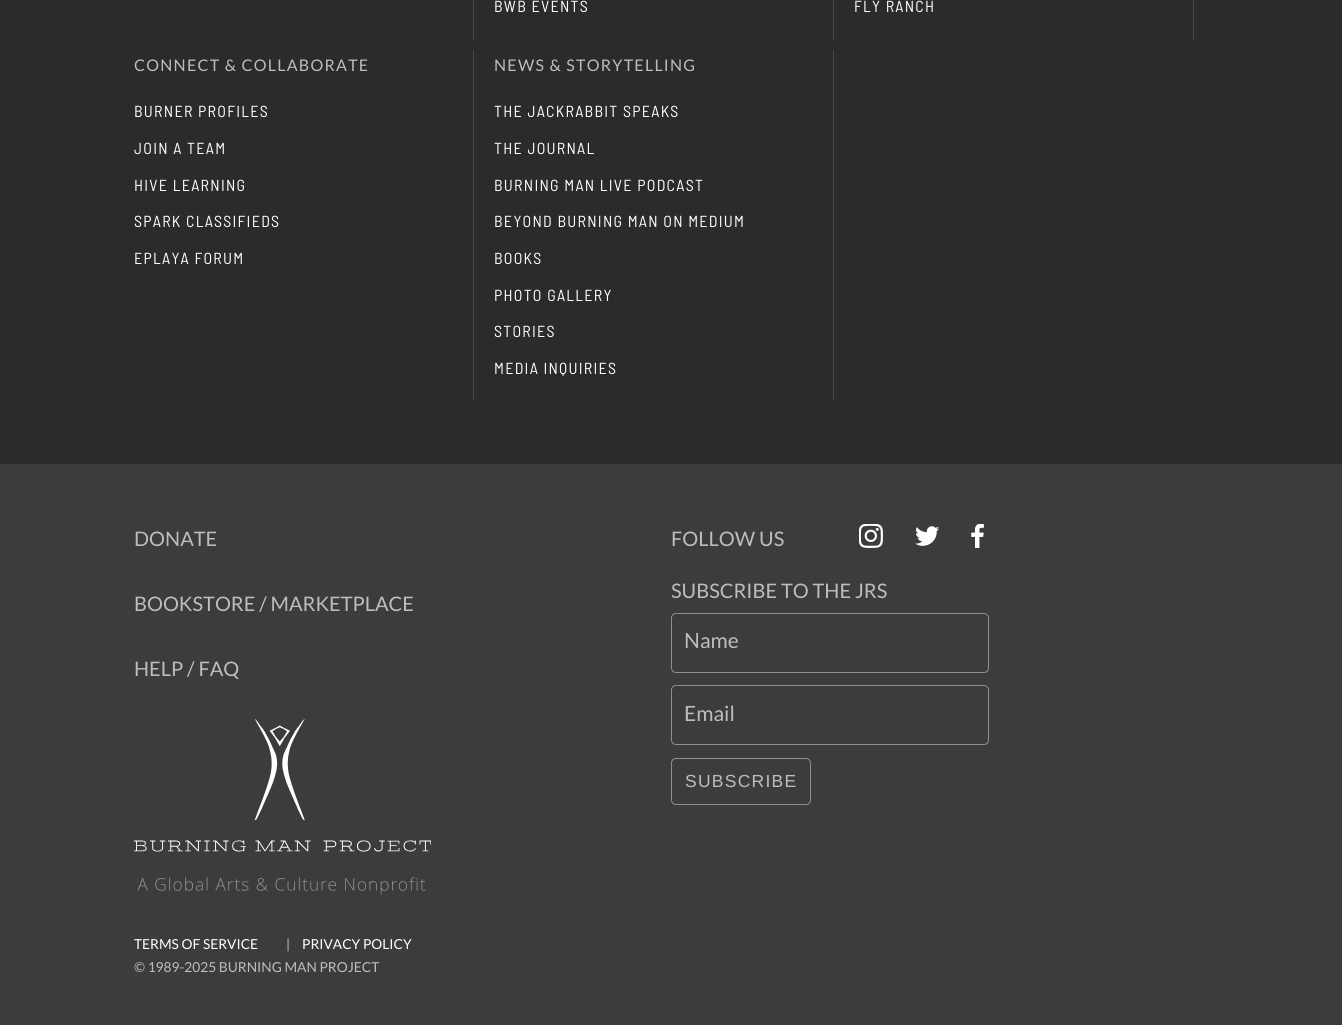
#include <cairo.h>
#include <math.h>
#include <stddef.h>


static void rgb(cairo_t *cr, int r, int g, int b)
{
	cairo_set_source_rgb(cr, r / 255.0, g / 255.0, b / 255.0);
}

static void face(cairo_t *cr, const char *family, double size, int italic, int bold)
{
	cairo_select_font_face(cr, family, italic ? CAIRO_FONT_SLANT_ITALIC : CAIRO_FONT_SLANT_NORMAL,
		bold ? CAIRO_FONT_WEIGHT_BOLD : CAIRO_FONT_WEIGHT_NORMAL);
	cairo_set_font_size(cr, size);
}

static void label(cairo_t *cr, double x, double y, const char *s)
{
	cairo_move_to(cr, x, y);
	cairo_show_text(cr, s);
}

static void tracked(cairo_t *cr, double x, double y, const char *s, double letter, double word)
{
	cairo_move_to(cr, x, y);
	while (*s) {
		char ch[5] = {0};
		int n = 0;
		do ch[n++] = *s++; while ((*s & 0xC0) == 0x80);
		cairo_show_text(cr, ch);
		cairo_rel_move_to(cr, letter + word * (*ch == ' '), 0);
	}
}

static void rect(cairo_t *cr, double x, double y, double w, double h)
{
	cairo_rectangle(cr, x, y, w, h);
	cairo_fill(cr);
}

static void rrect(cairo_t *cr, double x, double y, double w, double h, double r)
{
	cairo_new_sub_path(cr);
	cairo_arc(cr, x + w - r, y + h - r, r, 0, M_PI / 2);
	cairo_arc(cr, x + r, y + h - r, r, M_PI / 2, M_PI);
	cairo_arc(cr, x + r, y + r, r, M_PI, 1.5 * M_PI);
	cairo_arc(cr, x + w - r, y + r, r, 1.5 * M_PI, 2 * M_PI);
	cairo_close_path(cr);
}

static void image(cairo_t *cr, const char *path, double x, double y, double w, double h)
{
	cairo_surface_t *image = cairo_image_surface_create_from_png(path);
	cairo_save(cr);
	cairo_set_source_surface(cr, image, x, y);
	cairo_rectangle(cr, x, y, w, h);
	cairo_fill(cr);
	cairo_restore(cr);
	cairo_surface_destroy(image);
}

static void draw(cairo_t *cr) {
	rgb(cr, 43, 43, 43);
	cairo_paint(cr);
	rgb(cr, 73, 73, 73);
	rect(cr, 473, 0, 1, 39);
	rect(cr, 833, 0, 1, 39);
	face(cr, "Barlow Semi Condensed", 16, 0, 0);
	rgb(cr, 255, 255, 255);
	tracked(cr, 494, 12, "BWB EVENTS", 1.25, 0);
	rgb(cr, 73, 73, 73);
	rect(cr, 1193, 0, 1, 39);
	rgb(cr, 255, 255, 255);
	tracked(cr, 854, 12, "FLY RANCH", 1.25, 0);
	rgb(cr, 73, 73, 73);
	rect(cr, 473, 50, 1, 351);
	face(cr, "Lato", 16, 0, 0);
	rgb(cr, 189, 189, 189);
	tracked(cr, 134, 71, "CONNECT & COLLABORATE", 1.25, 0);
	face(cr, "Barlow Semi Condensed", 16, 0, 0);
	rgb(cr, 255, 255, 255);
	tracked(cr, 134, 117, "BURNER PROFILES", 1.25, 0);
	tracked(cr, 134, 154, "JOIN A TEAM", 1.25, 0);
	tracked(cr, 134, 191, "HIVE LEARNING", 1.25, 0);
	tracked(cr, 134, 227, "SPARK CLASSIFIEDS", 1.25, 0);
	tracked(cr, 134, 264, "EPLAYA FORUM", 1.25, 0);
	rgb(cr, 73, 73, 73);
	rect(cr, 833, 50, 1, 351);
	face(cr, "Lato", 16, 0, 0);
	rgb(cr, 189, 189, 189);
	tracked(cr, 494, 71, "NEWS & STORYTELLING", 1.25, 0);
	face(cr, "Barlow Semi Condensed", 16, 0, 0);
	rgb(cr, 255, 255, 255);
	tracked(cr, 494, 117, "THE JACKRABBIT SPEAKS", 1.25, 0);
	tracked(cr, 494, 154, "THE JOURNAL", 1.25, 0);
	tracked(cr, 494, 191, "BURNING MAN LIVE PODCAST", 1.25, 0);
	tracked(cr, 494, 227, "BEYOND BURNING MAN ON MEDIUM", 1.25, 0);
	tracked(cr, 494, 264, "BOOKS", 1.25, 0);
	tracked(cr, 494, 301, "PHOTO GALLERY", 1.25, 0);
	tracked(cr, 494, 337, "STORIES", 1.25, 0);
	tracked(cr, 494, 374, "MEDIA INQUIRIES", 1.25, 0);
	rgb(cr, 60, 60, 60);
	rect(cr, 0, 464, 1342, 561);
	face(cr, "Lato", 20, 0, 0);
	rgb(cr, 189, 189, 189);
	label(cr, 134, 546, "DONATE");
	label(cr, 671, 546, "FOLLOW US");
	image(cr, "image0.png", 859, 524, 24, 24);
	image(cr, "image1.png", 915, 526, 24, 20);
	image(cr, "image2.png", 971, 524, 13, 24);
	label(cr, 671, 598, "SUBSCRIBE TO THE JRS");
	rrect(cr, 671.5, 613.5, 317, 59, 4.5);
	rgb(cr, 143, 143, 143);
	cairo_set_line_width(cr, 1);
	cairo_stroke(cr);
	face(cr, "Lato", 21, 0, 0);
	rgb(cr, 189, 189, 189);
	label(cr, 684, 648, "Name");
	rrect(cr, 671.5, 685.5, 317, 59, 4.5);
	rgb(cr, 143, 143, 143);
	cairo_stroke(cr);
	rgb(cr, 189, 189, 189);
	label(cr, 684, 721, "Email");
	rrect(cr, 671.5, 758.5, 139, 46, 4.5);
	rgb(cr, 143, 143, 143);
	cairo_stroke(cr);
	face(cr, "Liberation Sans", 17.5, 0, 0);
	rgb(cr, 189, 189, 189);
	tracked(cr, 685, 787, "SUBSCRIBE", 1.25, 0);
	face(cr, "Lato", 20, 0, 0);
	label(cr, 134, 611, "BOOKSTORE / MARKETPLACE");
	label(cr, 134, 676, "HELP / FAQ");
	image(cr, "image3.png", 134, 719, 297, 176);
	face(cr, "Lato", 13.75, 0, 0);
	rgb(cr, 255, 255, 255);
	label(cr, 134, 949, "TERMS OF SERVICE");
	rgb(cr, 189, 189, 189);
	label(cr, 286, 949, "|");
	rgb(cr, 255, 255, 255);
	label(cr, 302, 949, "PRIVACY POLICY");
	rgb(cr, 189, 189, 189);
	label(cr, 134, 972, "© 1989-2025 BURNING MAN PROJECT");
}

int main(void) {
	cairo_surface_t *surface = cairo_image_surface_create(CAIRO_FORMAT_RGB24, 1342, 1025);
	cairo_t *cr = cairo_create(surface);
	cairo_font_options_t *options = cairo_font_options_create();
	cairo_font_options_set_hint_metrics(options, CAIRO_HINT_METRICS_OFF);
	cairo_font_options_set_hint_style(options, CAIRO_HINT_STYLE_NONE);
	cairo_set_font_options(cr, options);
	cairo_set_miter_limit(cr, 4);
	draw(cr);
	cairo_surface_write_to_png(surface, "render.png");
	cairo_font_options_destroy(options);
	cairo_destroy(cr);
	cairo_surface_destroy(surface);
	return 0;
}
